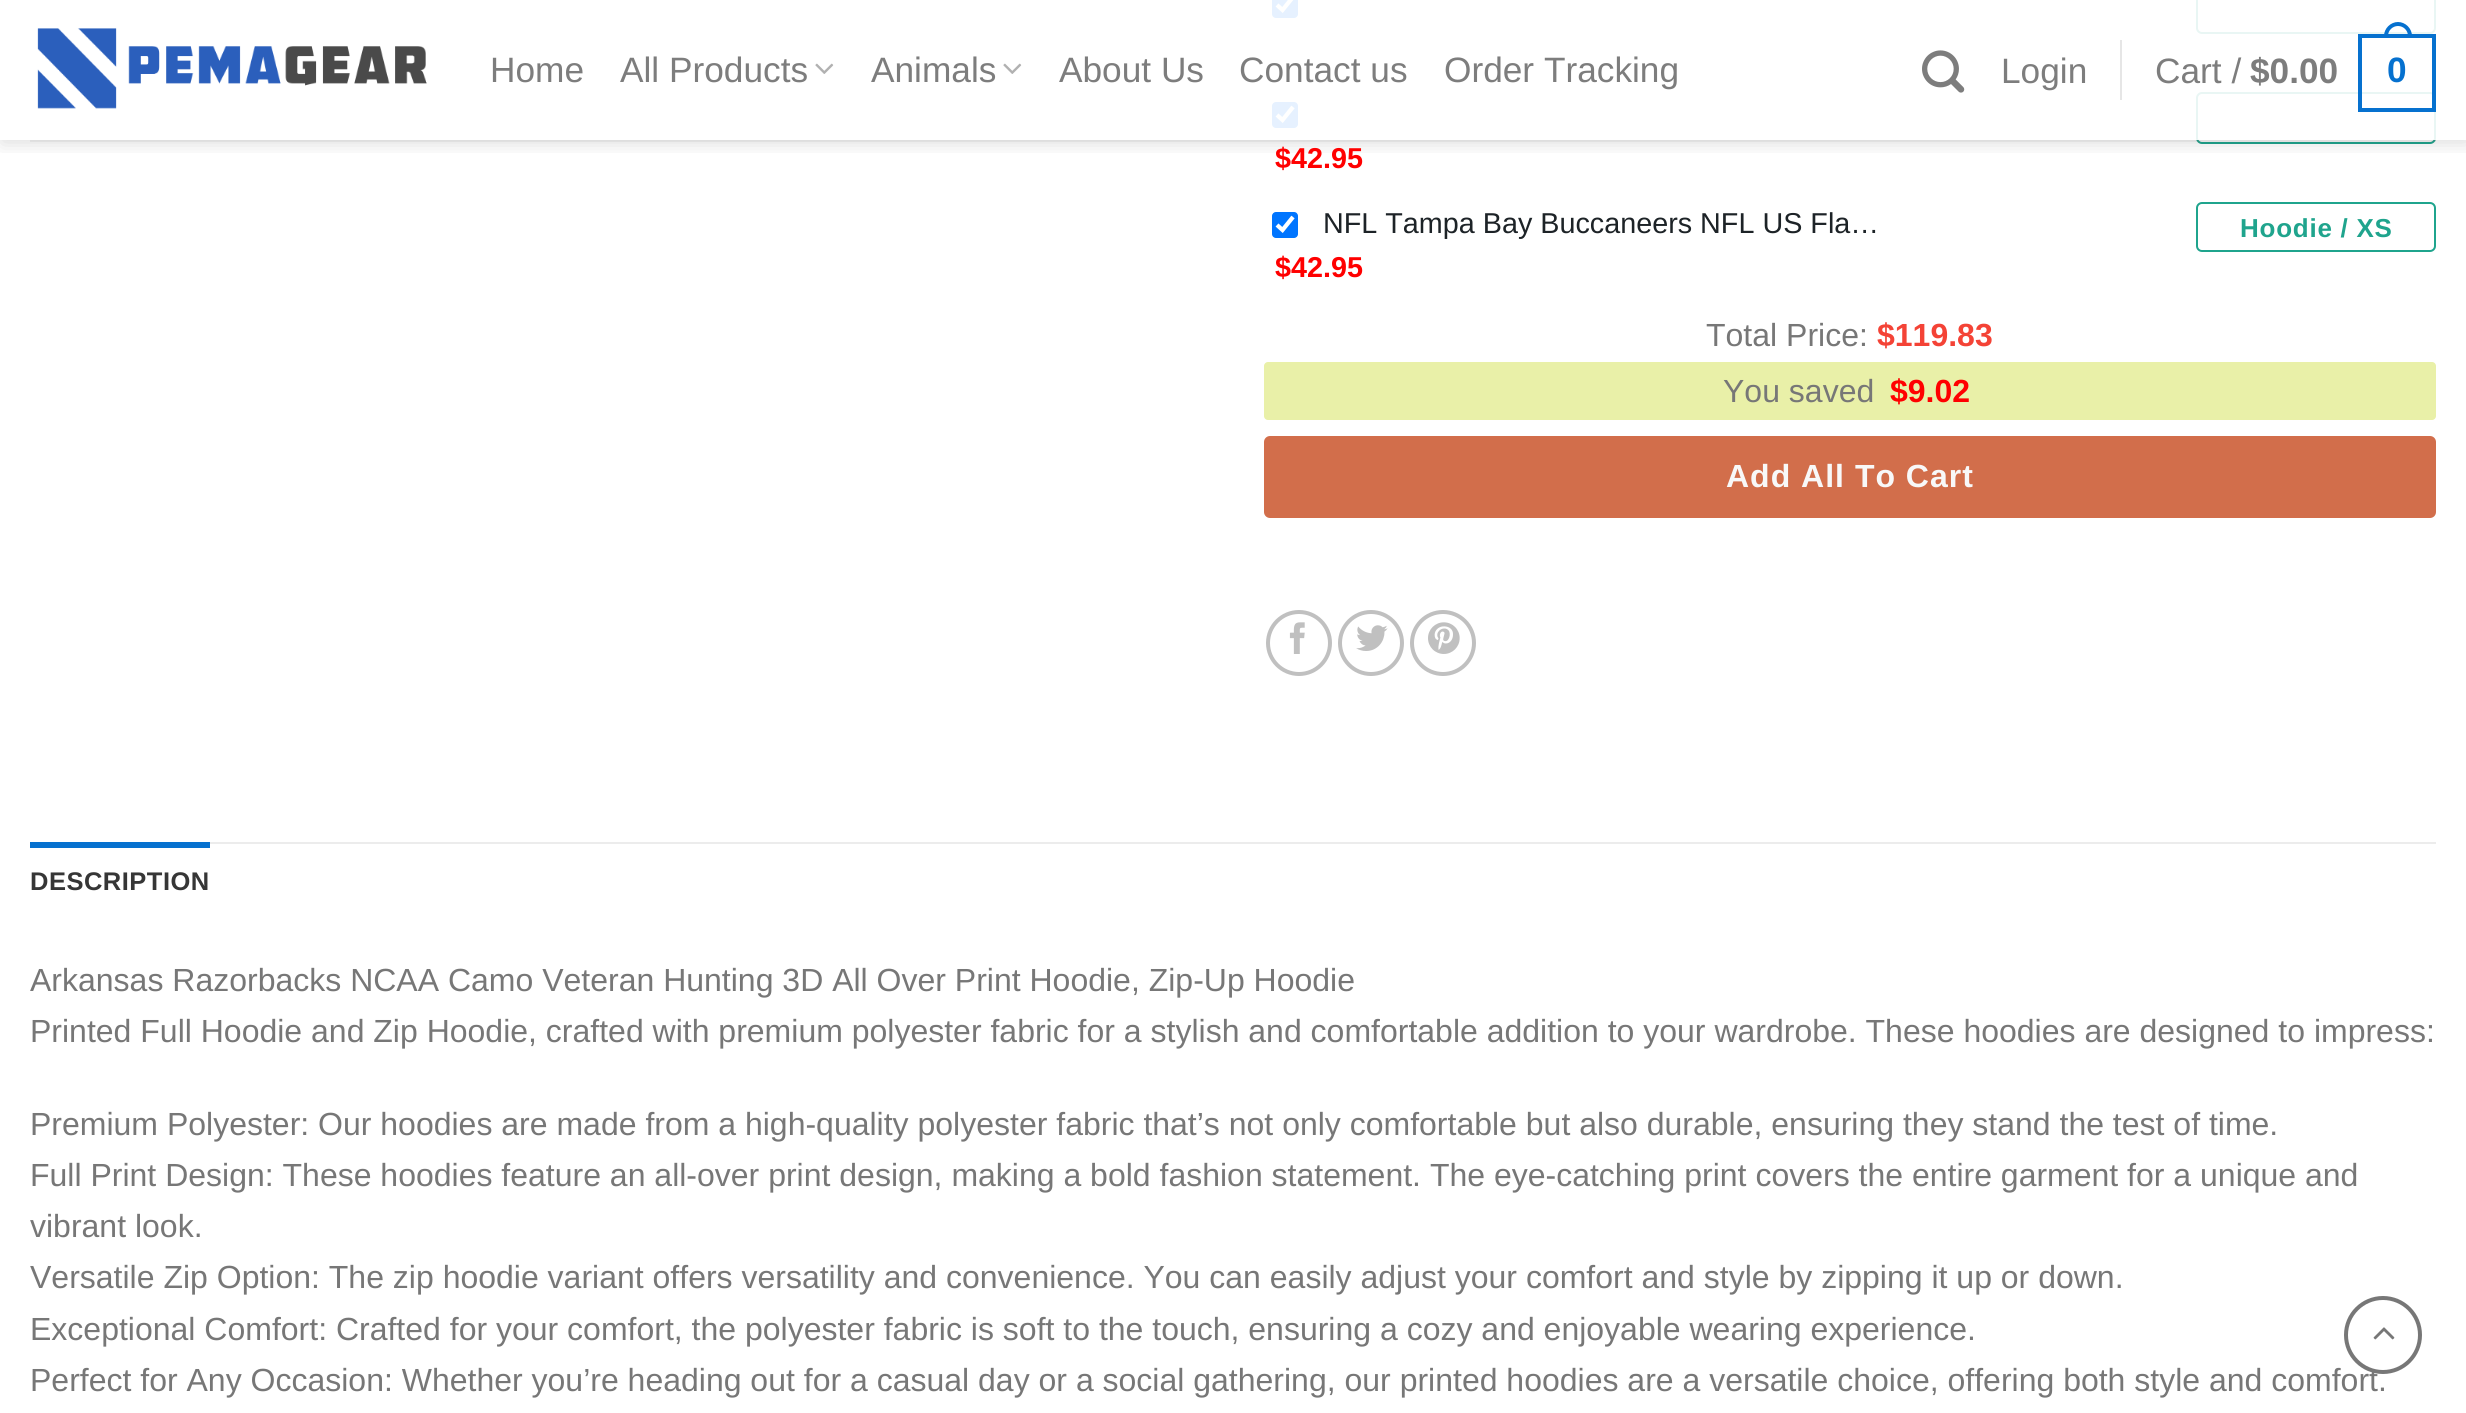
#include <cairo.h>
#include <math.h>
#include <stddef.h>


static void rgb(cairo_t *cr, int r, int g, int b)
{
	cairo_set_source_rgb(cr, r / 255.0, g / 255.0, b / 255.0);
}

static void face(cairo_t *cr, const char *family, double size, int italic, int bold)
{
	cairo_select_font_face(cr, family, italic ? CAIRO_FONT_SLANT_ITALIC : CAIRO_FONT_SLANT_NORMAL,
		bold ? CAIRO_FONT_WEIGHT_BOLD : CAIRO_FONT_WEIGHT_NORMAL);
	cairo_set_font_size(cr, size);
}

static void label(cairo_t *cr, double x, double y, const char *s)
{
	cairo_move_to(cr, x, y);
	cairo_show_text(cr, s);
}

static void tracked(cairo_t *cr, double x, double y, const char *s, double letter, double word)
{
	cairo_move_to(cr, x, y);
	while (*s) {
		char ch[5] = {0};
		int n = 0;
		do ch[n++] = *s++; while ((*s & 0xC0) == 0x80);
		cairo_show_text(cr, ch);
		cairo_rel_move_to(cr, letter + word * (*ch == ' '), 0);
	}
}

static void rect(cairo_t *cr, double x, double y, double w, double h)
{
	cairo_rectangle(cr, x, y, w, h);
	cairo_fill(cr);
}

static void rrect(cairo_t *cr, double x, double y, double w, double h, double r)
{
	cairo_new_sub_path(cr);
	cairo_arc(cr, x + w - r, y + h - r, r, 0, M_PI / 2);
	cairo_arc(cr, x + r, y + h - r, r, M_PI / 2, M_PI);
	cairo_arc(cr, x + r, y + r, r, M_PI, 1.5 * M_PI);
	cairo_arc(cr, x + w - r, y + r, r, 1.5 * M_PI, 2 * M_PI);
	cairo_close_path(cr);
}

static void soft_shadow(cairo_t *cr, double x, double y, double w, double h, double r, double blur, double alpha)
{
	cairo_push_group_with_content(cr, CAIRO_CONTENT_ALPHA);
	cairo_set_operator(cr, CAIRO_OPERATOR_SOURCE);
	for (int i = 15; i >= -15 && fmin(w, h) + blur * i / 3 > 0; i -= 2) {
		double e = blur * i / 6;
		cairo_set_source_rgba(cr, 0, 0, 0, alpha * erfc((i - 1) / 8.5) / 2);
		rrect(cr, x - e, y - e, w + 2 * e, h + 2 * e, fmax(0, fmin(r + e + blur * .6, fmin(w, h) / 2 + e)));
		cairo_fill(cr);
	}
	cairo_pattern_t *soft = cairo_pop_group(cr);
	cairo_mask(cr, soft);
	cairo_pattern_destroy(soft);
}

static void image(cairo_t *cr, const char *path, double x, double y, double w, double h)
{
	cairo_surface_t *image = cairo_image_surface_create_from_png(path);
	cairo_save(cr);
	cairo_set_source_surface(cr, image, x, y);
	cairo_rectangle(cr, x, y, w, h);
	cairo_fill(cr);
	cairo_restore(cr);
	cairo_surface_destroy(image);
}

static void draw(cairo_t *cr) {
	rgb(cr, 255, 255, 255);
	cairo_paint(cr);
	rgb(cr, 0, 117, 255);
	rrect(cr, 1272, -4, 26, 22, 4);
	cairo_fill(cr);
	cairo_new_path(cr);
	cairo_move_to(cr, 1277, 5);
	cairo_line_to(cr, 1282.5, 10);
	cairo_line_to(cr, 1293, -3);
	rgb(cr, 255, 255, 255);
	cairo_set_line_width(cr, 4.2);
	cairo_stroke(cr);
	rrect(cr, 2197, -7, 238, 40, 5);
	rgb(cr, 31, 164, 141);
	cairo_set_line_width(cr, 2);
	cairo_stroke(cr);
	rrect(cr, 2197, 93, 238, 50, 5);
	cairo_stroke(cr);
	rgb(cr, 0, 117, 255);
	rrect(cr, 1272, 102, 26, 26, 4);
	cairo_fill(cr);
	cairo_new_path(cr);
	cairo_move_to(cr, 1277, 115);
	cairo_line_to(cr, 1282.5, 120);
	cairo_line_to(cr, 1293, 107);
	rgb(cr, 255, 255, 255);
	cairo_set_line_width(cr, 4.2);
	cairo_stroke(cr);
	cairo_save(cr);
	cairo_rectangle(cr, 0, 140, 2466, 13);
	cairo_clip(cr);
	rgb(cr, 0, 0, 0);
	soft_shadow(cr, 2, 2, 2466, 140, 0, 10, 0.15);
	cairo_restore(cr);
	cairo_set_source_rgba(cr, 1, 1, 1, 0.9);
	rect(cr, 1272, 0, 1164, 140);
	image(cr, "image0.png", 37, 28, 390, 81);
	face(cr, "Liberation Sans", 35.25, 0, 0);
	rgb(cr, 125, 125, 125);
	label(cr, 490, 82, "Home");
	label(cr, 620, 82, "All Products");
	image(cr, "image1.png", 815, 63, 19, 11);
	label(cr, 871, 82, "Animals");
	image(cr, "image1.png", 1003, 63, 19, 11);
	label(cr, 1059, 82, "About Us");
	label(cr, 1239, 82, "Contact us");
	label(cr, 1444, 82, "Order Tracking");
	image(cr, "image2.png", 1922, 50, 43, 43);
	label(cr, 2001, 83, "Login");
	rgb(cr, 230, 230, 230);
	rect(cr, 2120, 40, 2, 60);
	rgb(cr, 125, 125, 125);
	label(cr, 2155, 83, "Cart /");
	face(cr, "Liberation Sans", 35.25, 0, 1);
	label(cr, 2250, 83, "$0.00");
	cairo_rectangle(cr, 2360, 36, 74, 74);
	rgb(cr, 6, 113, 207);
	cairo_set_line_width(cr, 4);
	cairo_stroke(cr);
	cairo_set_fill_rule(cr, CAIRO_FILL_RULE_EVEN_ODD);
	cairo_new_path(cr);
	cairo_move_to(cr, 2398, 22);
	cairo_curve_to(cr, 2405.5, 22, 2412, 28.5, 2412, 36);
	cairo_line_to(cr, 2412, 38);
	cairo_line_to(cr, 2384, 38);
	cairo_line_to(cr, 2384, 36);
	cairo_curve_to(cr, 2384, 28.5, 2390.5, 22, 2398, 22);
	cairo_close_path(cr);
	cairo_move_to(cr, 2398, 26);
	cairo_curve_to(cr, 2403.5, 26, 2408, 30.5, 2408, 36);
	cairo_line_to(cr, 2408, 38);
	cairo_line_to(cr, 2388, 38);
	cairo_line_to(cr, 2388, 36);
	cairo_curve_to(cr, 2388, 30.5, 2392.5, 26, 2398, 26);
	cairo_close_path(cr);
	cairo_fill(cr);
	label(cr, 2387, 82, "0");
	cairo_set_source_rgba(cr, 0.467, 0.467, 0.467, 0.1);
	rect(cr, 30, 140, 2406, 2);
	face(cr, "Liberation Sans", 28.75, 0, 1);
	rgb(cr, 255, 0, 0);
	label(cr, 1275, 168, "$42.95");
	rgb(cr, 0, 117, 255);
	rrect(cr, 1272, 212, 26, 26, 4);
	cairo_fill(cr);
	cairo_new_path(cr);
	cairo_move_to(cr, 1277, 225);
	cairo_line_to(cr, 1282.5, 230);
	cairo_line_to(cr, 1293, 217);
	rgb(cr, 255, 255, 255);
	cairo_set_line_width(cr, 4.2);
	cairo_stroke(cr);
	face(cr, "Liberation Sans", 28.75, 0, 0);
	rgb(cr, 29, 35, 39);
	label(cr, 1323, 233, "NFL Tampa Bay Buccaneers NFL US Fla…");
	face(cr, "Liberation Sans", 28.75, 0, 1);
	rgb(cr, 255, 0, 0);
	label(cr, 1275, 277, "$42.95");
	rrect(cr, 2197, 203, 238, 48, 5);
	rgb(cr, 31, 164, 141);
	cairo_set_line_width(cr, 2);
	cairo_stroke(cr);
	face(cr, "Liberation Sans", 26, 0, 1);
	tracked(cr, 2240, 237, "Hoodie / XS", 0.75, 0);
	face(cr, "Liberation Sans", 32, 0, 0);
	rgb(cr, 119, 119, 119);
	label(cr, 1706, 346, "Total Price:");
	face(cr, "Liberation Sans", 32, 0, 1);
	rgb(cr, 244, 67, 54);
	label(cr, 1877, 346, "$119.83");
	rgb(cr, 233, 240, 168);
	rrect(cr, 1264, 362, 1172, 58, 4);
	cairo_fill(cr);
	face(cr, "Liberation Sans", 32, 0, 0);
	rgb(cr, 119, 119, 119);
	label(cr, 1723, 402, "You saved");
	face(cr, "Liberation Sans", 32, 0, 1);
	rgb(cr, 255, 0, 0);
	label(cr, 1890, 402, "$9.02");
	rgb(cr, 210, 110, 75);
	rrect(cr, 1264, 436, 1172, 82, 6);
	cairo_fill(cr);
	rgb(cr, 248, 248, 248);
	tracked(cr, 1726, 487, "Add All To Cart", 1, 0);
	cairo_new_path(cr);
	cairo_arc(cr, 1299, 643, 31, 0, 2 * M_PI);
	rgb(cr, 192, 192, 192);
	cairo_set_line_width(cr, 4);
	cairo_stroke(cr);
	image(cr, "image3.png", 1289, 622, 16, 32);
	cairo_arc(cr, 1371, 643, 31, 0, 2 * M_PI);
	cairo_stroke(cr);
	image(cr, "image4.png", 1356, 625, 32, 26);
	cairo_arc(cr, 1443, 643, 31, 0, 2 * M_PI);
	cairo_stroke(cr);
	image(cr, "image5.png", 1428, 622, 32, 32);
	rgb(cr, 236, 236, 236);
	rect(cr, 210, 842, 2226, 2);
	rgb(cr, 6, 113, 207);
	rect(cr, 30, 842, 180, 6);
	face(cr, "Liberation Sans", 25.5, 0, 1);
	rgb(cr, 54, 54, 54);
	tracked(cr, 30, 890, "DESCRIPTION", 0.5, 0);
	face(cr, "Liberation Sans", 32, 0, 0);
	rgb(cr, 119, 119, 119);
	label(cr, 30, 991, "Arkansas Razorbacks NCAA Camo Veteran Hunting 3D All Over Print Hoodie, Zip-Up Hoodie");
	label(cr, 30, 1042, "Printed Full Hoodie and Zip Hoodie, crafted with premium polyester fabric for a stylish and comfortable addition to your wardrobe. These hoodies are designed to impress:");
	label(cr, 30, 1135, "Premium Polyester: Our hoodies are made from a high-quality polyester fabric that’s not only comfortable but also durable, ensuring they stand the test of time.");
	label(cr, 30, 1186, "Full Print Design: These hoodies feature an all-over print design, making a bold fashion statement. The eye-catching print covers the entire garment for a unique and");
	label(cr, 30, 1237, "vibrant look.");
	label(cr, 30, 1288, "Versatile Zip Option: The zip hoodie variant offers versatility and convenience. You can easily adjust your comfort and style by zipping it up or down.");
	label(cr, 30, 1340, "Exceptional Comfort: Crafted for your comfort, the polyester fabric is soft to the touch, ensuring a cozy and enjoyable wearing experience.");
	label(cr, 30, 1391, "Perfect for Any Occasion: Whether you’re heading out for a casual day or a social gathering, our printed hoodies are a versatile choice, offering both style and comfort.");
	cairo_new_path(cr);
	cairo_arc(cr, 2383, 1335, 37, 0, 2 * M_PI);
	cairo_stroke(cr);
	image(cr, "image6.png", 2373, 1327, 22, 13);
}

int main(void) {
	cairo_surface_t *surface = cairo_image_surface_create(CAIRO_FORMAT_RGB24, 2466, 1413);
	cairo_t *cr = cairo_create(surface);
	cairo_font_options_t *options = cairo_font_options_create();
	cairo_font_options_set_hint_metrics(options, CAIRO_HINT_METRICS_OFF);
	cairo_font_options_set_hint_style(options, CAIRO_HINT_STYLE_NONE);
	cairo_set_font_options(cr, options);
	cairo_set_miter_limit(cr, 4);
	draw(cr);
	cairo_surface_write_to_png(surface, "render.png");
	cairo_font_options_destroy(options);
	cairo_destroy(cr);
	cairo_surface_destroy(surface);
	return 0;
}
